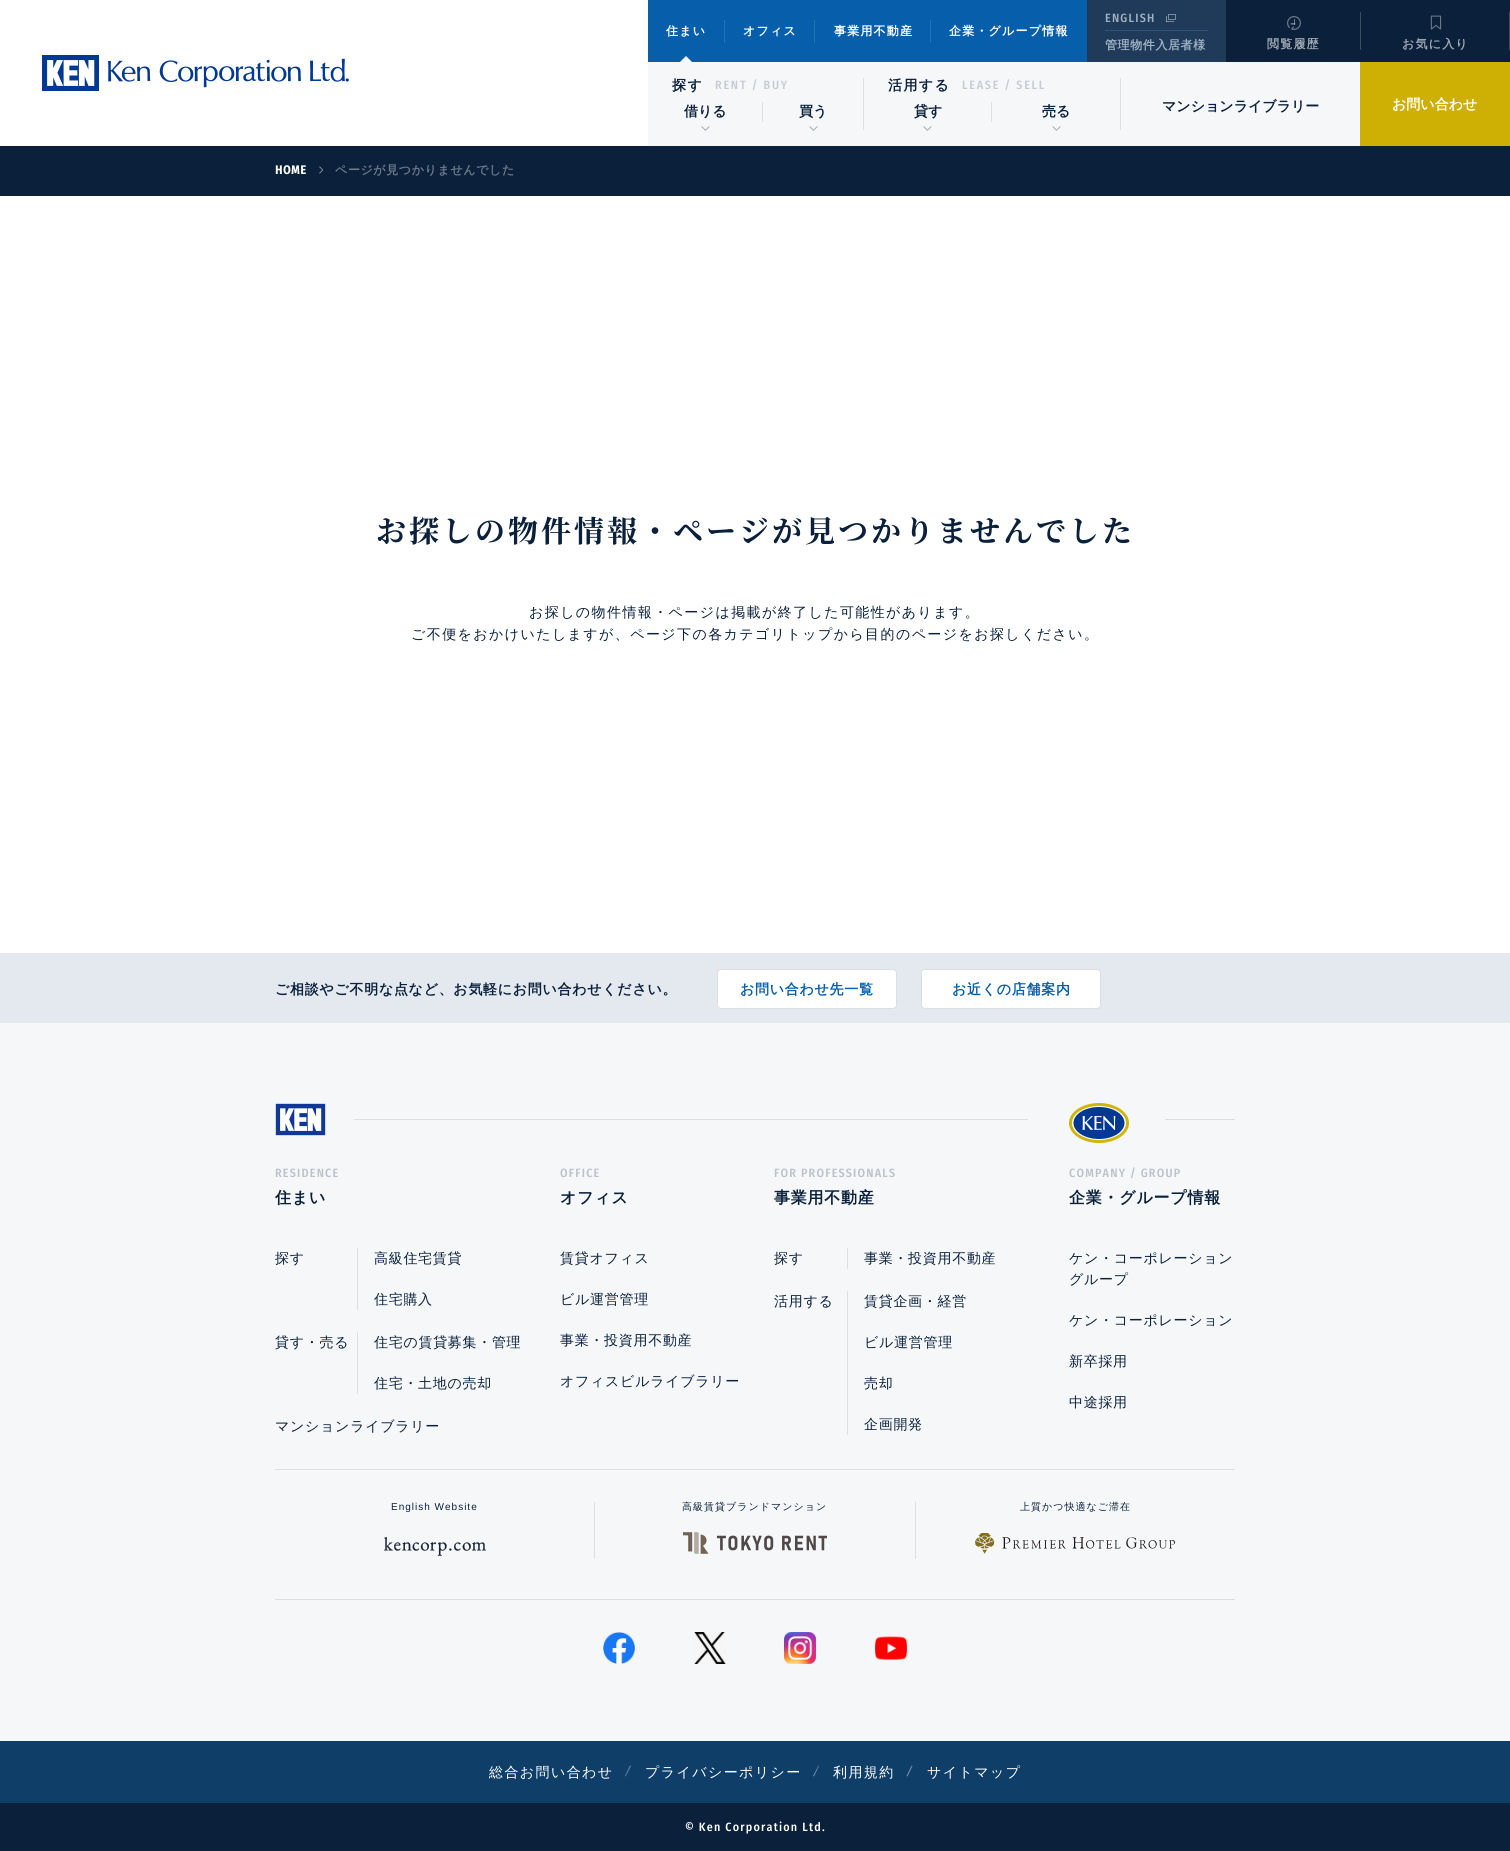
#include <cairo.h>
#include <math.h>
#include <stddef.h>


static void rgb(cairo_t *cr, int r, int g, int b)
{
	cairo_set_source_rgb(cr, r / 255.0, g / 255.0, b / 255.0);
}

static void face(cairo_t *cr, const char *family, double size, int italic, int bold)
{
	cairo_select_font_face(cr, family, italic ? CAIRO_FONT_SLANT_ITALIC : CAIRO_FONT_SLANT_NORMAL,
		bold ? CAIRO_FONT_WEIGHT_BOLD : CAIRO_FONT_WEIGHT_NORMAL);
	cairo_set_font_size(cr, size);
}

static void label(cairo_t *cr, double x, double y, const char *s)
{
	cairo_move_to(cr, x, y);
	cairo_show_text(cr, s);
}

static void tracked(cairo_t *cr, double x, double y, const char *s, double letter, double word)
{
	cairo_move_to(cr, x, y);
	while (*s) {
		char ch[5] = {0};
		int n = 0;
		do ch[n++] = *s++; while ((*s & 0xC0) == 0x80);
		cairo_show_text(cr, ch);
		cairo_rel_move_to(cr, letter + word * (*ch == ' '), 0);
	}
}

static void rect(cairo_t *cr, double x, double y, double w, double h)
{
	cairo_rectangle(cr, x, y, w, h);
	cairo_fill(cr);
}

static void rrect(cairo_t *cr, double x, double y, double w, double h, double r)
{
	cairo_new_sub_path(cr);
	cairo_arc(cr, x + w - r, y + h - r, r, 0, M_PI / 2);
	cairo_arc(cr, x + r, y + h - r, r, M_PI / 2, M_PI);
	cairo_arc(cr, x + r, y + r, r, M_PI, 1.5 * M_PI);
	cairo_arc(cr, x + w - r, y + r, r, 1.5 * M_PI, 2 * M_PI);
	cairo_close_path(cr);
}

static void image(cairo_t *cr, const char *path, double x, double y, double w, double h)
{
	cairo_surface_t *image = cairo_image_surface_create_from_png(path);
	cairo_save(cr);
	cairo_set_source_surface(cr, image, x, y);
	cairo_rectangle(cr, x, y, w, h);
	cairo_fill(cr);
	cairo_restore(cr);
	cairo_surface_destroy(image);
}

static void draw(cairo_t *cr) {
	rgb(cr, 255, 255, 255);
	cairo_paint(cr);
	rgb(cr, 7, 95, 172);
	rect(cr, 648, 0, 439, 62);
	face(cr, "WenQuanYi Zen Hei", 12, 0, 1);
	rgb(cr, 255, 255, 255);
	tracked(cr, 666, 35, "住まい", 1.2, 0);
	rgb(cr, 37, 114, 182);
	rect(cr, 724, 20, 1, 23);
	rgb(cr, 245, 247, 249);
	cairo_new_path(cr);
	cairo_move_to(cr, 692, 62);
	cairo_line_to(cr, 680, 62);
	cairo_line_to(cr, 686, 56);
	cairo_close_path(cr);
	cairo_fill(cr);
	rgb(cr, 255, 255, 255);
	tracked(cr, 743, 35, "オフィス", 1.2, 0);
	rgb(cr, 37, 114, 182);
	rect(cr, 814, 20, 1, 23);
	rgb(cr, 255, 255, 255);
	tracked(cr, 834, 35, "事業用不動産", 1.2, 0);
	rgb(cr, 37, 114, 182);
	rect(cr, 930, 20, 1, 23);
	rgb(cr, 255, 255, 255);
	tracked(cr, 949, 35, "企業・グループ情報", 1.2, 0);
	rgb(cr, 32, 58, 90);
	rect(cr, 1087, 0, 139, 62);
	face(cr, "Fira Sans Condensed Medium", 12, 0, 0);
	rgb(cr, 159, 178, 195);
	tracked(cr, 1105, 22, "ENGLISH", 1.2, 0);
	image(cr, "image0.png", 1166, 14, 10, 8);
	rgb(cr, 44, 86, 123);
	rect(cr, 1105, 30, 103, 1);
	face(cr, "WenQuanYi Zen Hei", 12, 0, 1);
	rgb(cr, 159, 178, 195);
	tracked(cr, 1105, 49, "管理物件入居者様", 0.6, 0);
	rgb(cr, 10, 32, 59);
	rect(cr, 1226, 0, 284, 62);
	image(cr, "image1.png", 1287, 16, 14, 14);
	rgb(cr, 161, 169, 178);
	tracked(cr, 1267, 48, "閲覧履歴", 1.2, 0);
	rgb(cr, 59, 77, 98);
	rect(cr, 1360, 12, 1, 38);
	image(cr, "image2.png", 1430, 15, 12, 15);
	rgb(cr, 161, 169, 178);
	tracked(cr, 1402, 48, "お気に入り", 1.2, 0);
	rgb(cr, 59, 77, 98);
	rect(cr, 1509, 12, 1, 38);
	image(cr, "image3.png", 42, 55, 307, 36);
	rgb(cr, 245, 247, 249);
	rect(cr, 648, 62, 712, 84);
	face(cr, "WenQuanYi Zen Hei", 14, 0, 1);
	rgb(cr, 10, 32, 59);
	tracked(cr, 672, 90, "探す", 1.4, 0);
	face(cr, "Fira Sans Condensed Medium", 12, 0, 0);
	rgb(cr, 198, 203, 211);
	tracked(cr, 715, 89, "RENT / BUY", 1.75, 0);
	rgb(cr, 218, 224, 225);
	rect(cr, 863, 78, 1, 52);
	face(cr, "WenQuanYi Zen Hei", 14, 0, 1);
	rgb(cr, 10, 32, 59);
	label(cr, 684, 116, "借りる");
	image(cr, "image4.png", 701, 126, 9, 5);
	rgb(cr, 218, 224, 225);
	rect(cr, 762, 102, 1, 20);
	rgb(cr, 10, 32, 59);
	label(cr, 799, 116, "買う");
	image(cr, "image4.png", 809, 126, 9, 5);
	tracked(cr, 888, 90, "活用する", 1.4, 0);
	face(cr, "Fira Sans Condensed Medium", 12, 0, 0);
	rgb(cr, 198, 203, 211);
	tracked(cr, 962, 89, "LEASE / SELL", 1.75, 0);
	rgb(cr, 218, 224, 225);
	rect(cr, 1120, 78, 1, 52);
	face(cr, "WenQuanYi Zen Hei", 14, 0, 1);
	rgb(cr, 10, 32, 59);
	label(cr, 914, 116, "貸す");
	image(cr, "image4.png", 923, 126, 9, 5);
	rgb(cr, 218, 224, 225);
	rect(cr, 991, 102, 1, 20);
	rgb(cr, 10, 32, 59);
	label(cr, 1042, 116, "売る");
	image(cr, "image4.png", 1052, 126, 9, 5);
	label(cr, 1162, 111, "マンションライブラリー");
	rgb(cr, 206, 175, 3);
	rect(cr, 1360, 62, 150, 84);
	rgb(cr, 255, 255, 255);
	label(cr, 1392, 109, "お問い合わせ");
	rgb(cr, 10, 32, 59);
	rect(cr, 0, 146, 1510, 50);
	face(cr, "Fira Sans Condensed", 12, 0, 1);
	rgb(cr, 255, 255, 255);
	tracked(cr, 275, 174, "HOME", 0.6, 0);
	image(cr, "image5.png", 319, 166, 4, 8);
	face(cr, "WenQuanYi Zen Hei", 12, 0, 1);
	rgb(cr, 108, 121, 137);
	tracked(cr, 335, 174, "ページが見つかりませんでした", 0.6, 0);
	face(cr, "Noto Serif CJK JP", 30, 0, 1);
	rgb(cr, 10, 32, 59);
	tracked(cr, 376, 542, "お探しの物件情報・ページが見つかりませんでした", 3, 0);
	face(cr, "WenQuanYi Zen Hei Medium", 14, 0, 0);
	tracked(cr, 529, 617, "お探しの物件情報・ページは掲載が終了した可能性があります。", 1.4, 0);
	tracked(cr, 411, 639, "ご不便をおかけいたしますが、ページ下の各カテゴリトップから目的のページをお探しください。", 1.4, 0);
	rgb(cr, 245, 247, 249);
	rect(cr, 0, 1023, 1510, 718);
	rgb(cr, 228, 233, 239);
	rect(cr, 0, 953, 1510, 70);
	face(cr, "WenQuanYi Zen Hei", 14, 0, 1);
	rgb(cr, 10, 32, 59);
	tracked(cr, 275, 994, "ご相談やご不明な点など、お気軽にお問い合わせください。", 0.7, 0);
	rgb(cr, 255, 255, 255);
	rrect(cr, 717.5, 969.5, 179, 39, 3.5);
	cairo_fill_preserve(cr);
	rgb(cr, 218, 224, 225);
	cairo_set_line_width(cr, 1);
	cairo_stroke(cr);
	rgb(cr, 7, 95, 172);
	tracked(cr, 740, 994, "お問い合わせ先一覧", 0.7, 0);
	rgb(cr, 255, 255, 255);
	rrect(cr, 921.5, 969.5, 179, 39, 3.5);
	cairo_fill_preserve(cr);
	rgb(cr, 218, 224, 225);
	cairo_stroke(cr);
	rgb(cr, 7, 95, 172);
	tracked(cr, 952, 994, "お近くの店舗案内", 0.7, 0);
	image(cr, "image6.png", 275, 1103, 51, 33);
	rgb(cr, 218, 224, 225);
	rect(cr, 354, 1119, 674, 1);
	image(cr, "image7.png", 1069, 1103, 60, 40);
	rect(cr, 1165, 1119, 70, 1);
	face(cr, "Fira Sans Condensed Medium", 12, 0, 0);
	rgb(cr, 186, 193, 201);
	tracked(cr, 275, 1177, "RESIDENCE", 1.2, 0);
	face(cr, "WenQuanYi Zen Hei", 16, 0, 1);
	rgb(cr, 10, 32, 59);
	tracked(cr, 275, 1203, "住まい", 0.75, 0);
	rgb(cr, 218, 224, 225);
	rect(cr, 357, 1248, 1, 62);
	face(cr, "WenQuanYi Zen Hei Medium", 14, 0, 0);
	rgb(cr, 10, 32, 59);
	tracked(cr, 275, 1263, "探す", 0.7, 0);
	tracked(cr, 374, 1263, "高級住宅賃貸", 0.7, 0);
	tracked(cr, 374, 1304, "住宅購入", 0.7, 0);
	rgb(cr, 218, 224, 225);
	rect(cr, 357, 1332, 1, 62);
	rgb(cr, 10, 32, 59);
	tracked(cr, 275, 1347, "貸す・売る", 0.7, 0);
	tracked(cr, 374, 1347, "住宅の賃貸募集・管理", 0.7, 0);
	tracked(cr, 374, 1388, "住宅・土地の売却", 0.7, 0);
	tracked(cr, 275, 1431, "マンションライブラリー", 0.7, 0);
	face(cr, "Fira Sans Condensed Medium", 12, 0, 0);
	rgb(cr, 186, 193, 201);
	tracked(cr, 560, 1177, "OFFICE", 1.2, 0);
	face(cr, "WenQuanYi Zen Hei", 16, 0, 1);
	rgb(cr, 10, 32, 59);
	tracked(cr, 560, 1203, "オフィス", 0.75, 0);
	face(cr, "WenQuanYi Zen Hei Medium", 14, 0, 0);
	tracked(cr, 560, 1263, "賃貸オフィス", 0.7, 0);
	tracked(cr, 560, 1304, "ビル運営管理", 0.7, 0);
	tracked(cr, 560, 1345, "事業・投資用不動産", 0.7, 0);
	tracked(cr, 560, 1386, "オフィスビルライブラリー", 0.7, 0);
	face(cr, "Fira Sans Condensed Medium", 12, 0, 0);
	rgb(cr, 186, 193, 201);
	tracked(cr, 774, 1177, "FOR PROFESSIONALS", 1.2, 0);
	face(cr, "WenQuanYi Zen Hei", 16, 0, 1);
	rgb(cr, 10, 32, 59);
	tracked(cr, 774, 1203, "事業用不動産", 0.75, 0);
	rgb(cr, 218, 224, 225);
	rect(cr, 847, 1248, 1, 21);
	face(cr, "WenQuanYi Zen Hei Medium", 14, 0, 0);
	rgb(cr, 10, 32, 59);
	tracked(cr, 774, 1263, "探す", 0.7, 0);
	tracked(cr, 864, 1263, "事業・投資用不動産", 0.7, 0);
	rgb(cr, 218, 224, 225);
	rect(cr, 847, 1291, 1, 144);
	rgb(cr, 10, 32, 59);
	tracked(cr, 774, 1306, "活用する", 0.7, 0);
	tracked(cr, 864, 1306, "賃貸企画・経営", 0.7, 0);
	tracked(cr, 864, 1347, "ビル運営管理", 0.7, 0);
	tracked(cr, 864, 1388, "売却", 0.7, 0);
	tracked(cr, 864, 1429, "企画開発", 0.7, 0);
	face(cr, "Fira Sans Condensed Medium", 12, 0, 0);
	rgb(cr, 186, 193, 201);
	tracked(cr, 1069, 1177, "COMPANY / GROUP", 1.2, 0);
	face(cr, "WenQuanYi Zen Hei", 16, 0, 1);
	rgb(cr, 10, 32, 59);
	tracked(cr, 1069, 1203, "企業・グループ情報", 0.75, 0);
	face(cr, "WenQuanYi Zen Hei Medium", 14, 0, 0);
	tracked(cr, 1069, 1263, "ケン・コーポレーション", 0.7, 0);
	tracked(cr, 1069, 1284, "グループ", 0.7, 0);
	tracked(cr, 1069, 1325, "ケン・コーポレーション", 0.7, 0);
	tracked(cr, 1069, 1366, "新卒採用", 0.7, 0);
	tracked(cr, 1069, 1407, "中途採用", 0.7, 0);
	rgb(cr, 218, 224, 225);
	rect(cr, 275, 1469, 960, 1);
	rect(cr, 594, 1502, 1, 57);
	face(cr, "Liberation Sans", 10, 0, 0);
	rgb(cr, 10, 32, 59);
	tracked(cr, 391, 1510, "English Website", 1, 0);
	image(cr, "image8.png", 384, 1537, 102, 19);
	rgb(cr, 218, 224, 225);
	rect(cr, 915, 1502, 1, 57);
	face(cr, "WenQuanYi Zen Hei Medium", 10, 0, 0);
	rgb(cr, 10, 32, 59);
	tracked(cr, 682, 1510, "高級賃貸ブランドマンション", 1, 0);
	image(cr, "image9.png", 683, 1532, 144, 22);
	tracked(cr, 1020, 1510, "上質かつ快適なご滞在", 1, 0);
	image(cr, "image10.png", 975, 1533, 200, 21);
	rgb(cr, 218, 224, 225);
	rect(cr, 275, 1599, 960, 1);
	image(cr, "image11.png", 603, 1632, 32, 32);
	image(cr, "image12.png", 694, 1632, 32, 32);
	image(cr, "image13.png", 784, 1632, 32, 32);
	image(cr, "image14.png", 875, 1636, 32, 24);
	rgb(cr, 15, 63, 105);
	rect(cr, 0, 1741, 1510, 62);
	face(cr, "WenQuanYi Zen Hei Medium", 14, 0, 0);
	rgb(cr, 255, 255, 255);
	tracked(cr, 489, 1777, "総合お問い合わせ", 1.4, 0);
	rgb(cr, 111, 140, 165);
	cairo_new_path(cr);
	cairo_move_to(cr, 630, 1765.5);
	cairo_line_to(cr, 631, 1766);
	cairo_line_to(cr, 625.5, 1776.5);
	cairo_line_to(cr, 625, 1776);
	cairo_close_path(cr);
	cairo_fill(cr);
	rgb(cr, 255, 255, 255);
	tracked(cr, 645, 1777, "プライバシーポリシー", 1.4, 0);
	rgb(cr, 111, 140, 165);
	cairo_new_path(cr);
	cairo_move_to(cr, 818.5, 1765.5);
	cairo_line_to(cr, 819, 1766);
	cairo_line_to(cr, 814, 1776.5);
	cairo_line_to(cr, 813, 1776);
	cairo_close_path(cr);
	cairo_fill(cr);
	rgb(cr, 255, 255, 255);
	tracked(cr, 833, 1777, "利用規約", 1.4, 0);
	rgb(cr, 111, 140, 165);
	cairo_new_path(cr);
	cairo_move_to(cr, 911.5, 1765.5);
	cairo_line_to(cr, 912.5, 1766);
	cairo_line_to(cr, 907.5, 1776.5);
	cairo_line_to(cr, 906.5, 1776);
	cairo_close_path(cr);
	cairo_fill(cr);
	rgb(cr, 255, 255, 255);
	tracked(cr, 927, 1777, "サイトマップ", 1.4, 0);
	rgb(cr, 10, 32, 59);
	rect(cr, 0, 1803, 1510, 48);
	face(cr, "Fira Sans Condensed Medium", 12, 0, 0);
	rgb(cr, 255, 255, 255);
	tracked(cr, 685, 1831, "© Ken Corporation Ltd.", 1.2, 0);
}

int main(void) {
	cairo_surface_t *surface = cairo_image_surface_create(CAIRO_FORMAT_RGB24, 1510, 1851);
	cairo_t *cr = cairo_create(surface);
	cairo_font_options_t *options = cairo_font_options_create();
	cairo_font_options_set_hint_metrics(options, CAIRO_HINT_METRICS_OFF);
	cairo_font_options_set_hint_style(options, CAIRO_HINT_STYLE_NONE);
	cairo_set_font_options(cr, options);
	cairo_set_miter_limit(cr, 4);
	draw(cr);
	cairo_surface_write_to_png(surface, "render.png");
	cairo_font_options_destroy(options);
	cairo_destroy(cr);
	cairo_surface_destroy(surface);
	return 0;
}
